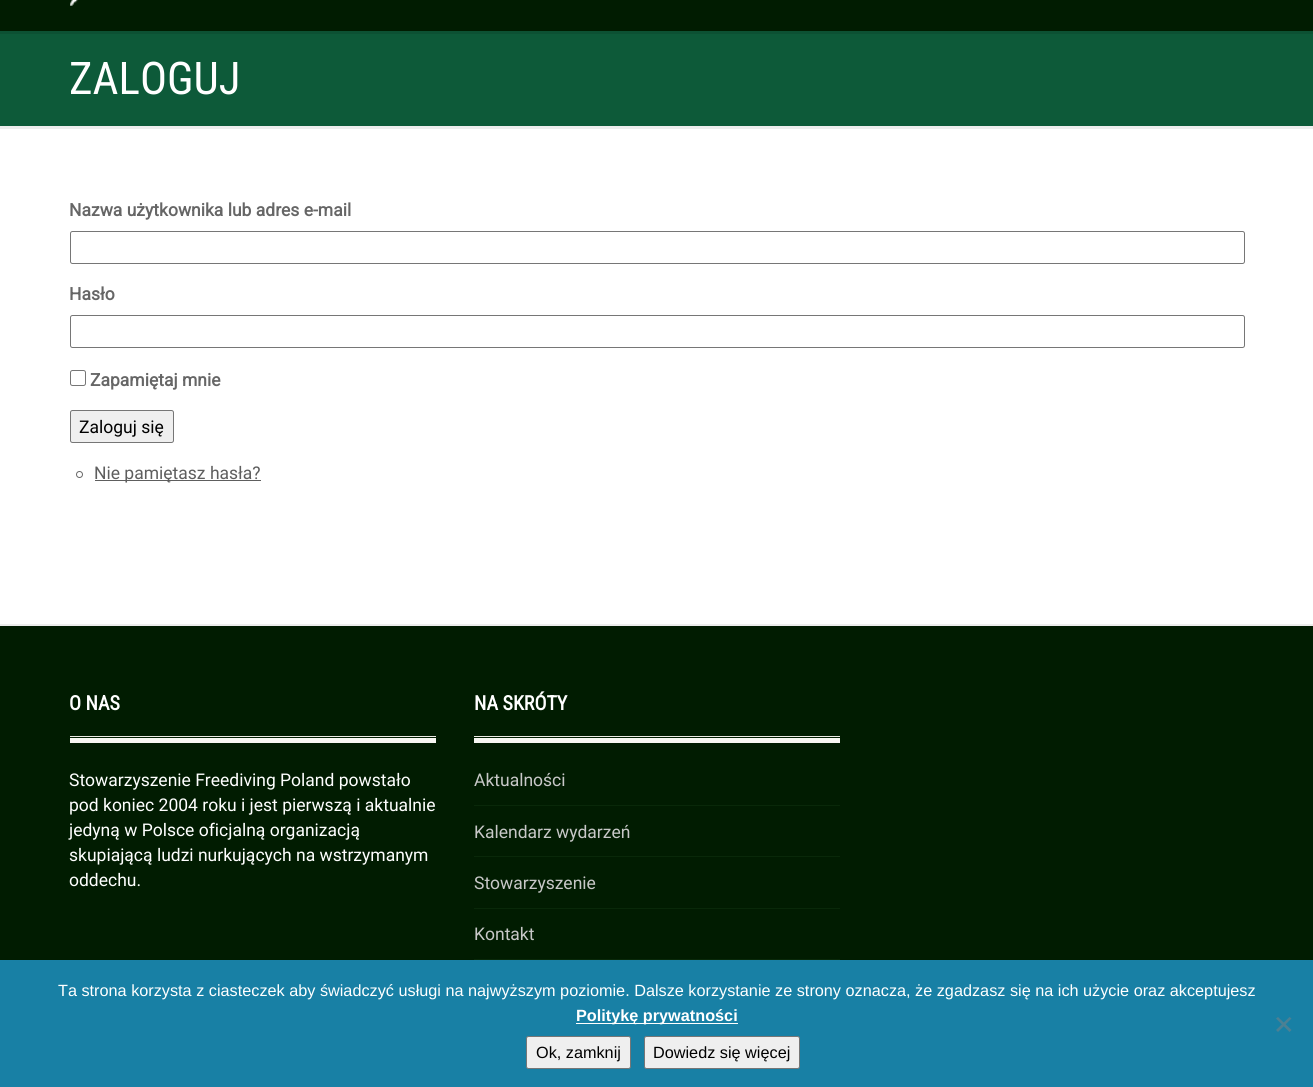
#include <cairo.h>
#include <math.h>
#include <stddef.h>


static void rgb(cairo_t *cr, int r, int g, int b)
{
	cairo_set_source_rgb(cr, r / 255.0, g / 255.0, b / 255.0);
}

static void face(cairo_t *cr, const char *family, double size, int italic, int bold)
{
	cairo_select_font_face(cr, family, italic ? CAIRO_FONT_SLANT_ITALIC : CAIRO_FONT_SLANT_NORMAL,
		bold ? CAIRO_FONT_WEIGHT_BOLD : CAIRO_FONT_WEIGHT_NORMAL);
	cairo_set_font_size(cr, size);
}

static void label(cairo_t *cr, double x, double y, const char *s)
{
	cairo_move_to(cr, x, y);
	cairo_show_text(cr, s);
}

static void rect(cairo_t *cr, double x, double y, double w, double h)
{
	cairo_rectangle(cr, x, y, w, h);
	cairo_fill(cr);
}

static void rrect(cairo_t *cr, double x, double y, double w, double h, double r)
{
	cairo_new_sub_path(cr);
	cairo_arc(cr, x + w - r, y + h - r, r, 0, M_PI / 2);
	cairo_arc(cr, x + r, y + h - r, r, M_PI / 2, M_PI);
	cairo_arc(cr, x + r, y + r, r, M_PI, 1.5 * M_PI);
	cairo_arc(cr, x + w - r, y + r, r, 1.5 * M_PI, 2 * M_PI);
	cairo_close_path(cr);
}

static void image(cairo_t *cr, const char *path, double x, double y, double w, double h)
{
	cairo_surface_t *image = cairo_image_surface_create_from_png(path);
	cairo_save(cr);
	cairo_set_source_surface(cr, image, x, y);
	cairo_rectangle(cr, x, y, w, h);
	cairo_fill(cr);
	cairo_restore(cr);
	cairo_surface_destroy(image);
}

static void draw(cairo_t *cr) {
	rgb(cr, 255, 255, 255);
	cairo_paint(cr);
	rgb(cr, 12, 81, 51);
	cairo_new_path(cr);
	cairo_move_to(cr, 0, 31);
	cairo_line_to(cr, 0, 34);
	cairo_line_to(cr, 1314, 34);
	cairo_line_to(cr, 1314, -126);
	cairo_line_to(cr, 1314, 31);
	cairo_close_path(cr);
	cairo_fill(cr);
	rgb(cr, 1, 28, 1);
	rect(cr, 0, 0, 1313, 31);
	image(cr, "image0.png", 70, 0, 8, 6);
	rgb(cr, 237, 237, 237);
	cairo_new_path(cr);
	cairo_move_to(cr, 0, 126);
	cairo_line_to(cr, 0, 129);
	cairo_line_to(cr, 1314, 129);
	cairo_line_to(cr, 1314, 34);
	cairo_line_to(cr, 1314, 126);
	cairo_close_path(cr);
	cairo_fill(cr);
	rgb(cr, 13, 90, 57);
	rect(cr, 0, 34, 1313, 92);
	face(cr, "Roboto Condensed", 45, 0, 0);
	rgb(cr, 255, 255, 255);
	label(cr, 69, 94, "ZALOGUJ");
	face(cr, "Roboto", 17.5, 0, 1);
	rgb(cr, 102, 102, 102);
	label(cr, 69, 216, "Nazwa użytkownika lub adres e-mail");
	rrect(cr, 70.5, 231.5, 1174, 32, 2);
	rgb(cr, 118, 118, 118);
	cairo_set_line_width(cr, 1);
	cairo_stroke(cr);
	rgb(cr, 102, 102, 102);
	label(cr, 69, 300, "Hasło");
	rrect(cr, 70.5, 315.5, 1174, 32, 2);
	rgb(cr, 118, 118, 118);
	cairo_stroke(cr);
	rrect(cr, 70.5, 370.5, 15, 15, 2);
	cairo_stroke(cr);
	rgb(cr, 102, 102, 102);
	label(cr, 90, 386, "Zapamiętaj mnie");
	rgb(cr, 239, 239, 239);
	rrect(cr, 70.5, 410.5, 103, 32, 2);
	cairo_fill_preserve(cr);
	rgb(cr, 118, 118, 118);
	cairo_stroke(cr);
	face(cr, "Roboto", 17.5, 0, 0);
	rgb(cr, 0, 0, 0);
	label(cr, 79, 433, "Zaloguj się");
	cairo_new_path(cr);
	cairo_arc(cr, 79.5, 474.5, 3, 0, 2 * M_PI);
	rgb(cr, 102, 102, 102);
	cairo_stroke(cr);
	rgb(cr, 94, 94, 94);
	rect(cr, 95, 480, 166, 1);
	label(cr, 94, 479, "Nie pamiętasz hasła?");
	rgb(cr, 237, 237, 237);
	cairo_new_path(cr);
	cairo_move_to(cr, 0, 624);
	cairo_line_to(cr, 0, 626);
	cairo_line_to(cr, 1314, 626);
	cairo_line_to(cr, 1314, 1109);
	cairo_line_to(cr, 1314, 624);
	cairo_close_path(cr);
	cairo_fill(cr);
	rgb(cr, 1, 28, 1);
	rect(cr, 0, 626, 1313, 334);
	rgb(cr, 248, 247, 243);
	rect(cr, 70, 738, 366, 5);
	face(cr, "Roboto Condensed", 20, 0, 1);
	rgb(cr, 255, 255, 255);
	label(cr, 69, 710, "O NAS");
	rgb(cr, 236, 234, 228);
	rect(cr, 70, 736, 366, 1);
	face(cr, "Roboto", 17.5, 0, 0);
	rgb(cr, 255, 255, 255);
	label(cr, 69, 786, "Stowarzyszenie Freediving Poland powstało");
	label(cr, 69, 811, "pod koniec 2004 roku i jest pierwszą i aktualnie");
	label(cr, 69, 836, "jedyną w Polsce oficjalną organizacją");
	label(cr, 69, 861, "skupiającą ludzi nurkujących na wstrzymanym");
	label(cr, 69, 886, "oddechu.");
	rgb(cr, 248, 247, 243);
	rect(cr, 474, 738, 366, 5);
	face(cr, "Roboto Condensed", 20, 0, 1);
	rgb(cr, 255, 255, 255);
	label(cr, 474, 710, "NA SKRÓTY");
	rgb(cr, 236, 234, 228);
	rect(cr, 474, 736, 366, 1);
	rgb(cr, 9, 40, 9);
	rect(cr, 474, 805, 366, 1);
	face(cr, "Roboto", 17.5, 0, 0);
	rgb(cr, 200, 200, 200);
	label(cr, 474, 786, "Aktualności");
	rgb(cr, 9, 40, 9);
	rect(cr, 474, 856, 366, 1);
	rgb(cr, 200, 200, 200);
	label(cr, 474, 838, "Kalendarz wydarzeń");
	rgb(cr, 9, 40, 9);
	rect(cr, 474, 908, 366, 1);
	rgb(cr, 200, 200, 200);
	label(cr, 474, 889, "Stowarzyszenie");
	rgb(cr, 9, 40, 9);
	rect(cr, 474, 959, 366, 1);
	rgb(cr, 200, 200, 200);
	label(cr, 474, 940, "Kontakt");
	rgb(cr, 24, 128, 165);
	rect(cr, 0, 960, 1313, 127);
	face(cr, "Liberation Sans", 16.25, 0, 0);
	rgb(cr, 255, 255, 255);
	label(cr, 58, 996, "Ta strona korzysta z ciasteczek aby świadczyć usługi na najwyższym poziomie. Dalsze korzystanie ze strony oznacza, że zgadzasz się na ich użycie oraz akceptujesz");
	rect(cr, 576, 1023, 162, 1);
	face(cr, "Liberation Sans", 16.25, 0, 1);
	label(cr, 576, 1021, "Politykę prywatności");
	rgb(cr, 76, 128, 147);
	cairo_new_path(cr);
	cairo_move_to(cr, 1289.5, 1017);
	cairo_line_to(cr, 1291.5, 1018.5);
	cairo_line_to(cr, 1278, 1032);
	cairo_line_to(cr, 1276, 1030);
	cairo_close_path(cr);
	cairo_fill(cr);
	cairo_new_path(cr);
	cairo_move_to(cr, 1276, 1018.5);
	cairo_line_to(cr, 1278, 1017);
	cairo_line_to(cr, 1291.5, 1030);
	cairo_line_to(cr, 1289.5, 1032);
	cairo_close_path(cr);
	cairo_fill(cr);
	rgb(cr, 239, 239, 239);
	rrect(cr, 526.5, 1036.5, 104, 32, 2);
	cairo_fill_preserve(cr);
	rgb(cr, 118, 118, 118);
	cairo_stroke(cr);
	face(cr, "Liberation Sans", 16.25, 0, 0);
	rgb(cr, 0, 0, 0);
	label(cr, 536, 1058, "Ok, zamknij");
	rgb(cr, 239, 239, 239);
	rrect(cr, 644.5, 1036.5, 155, 32, 2);
	cairo_fill_preserve(cr);
	rgb(cr, 118, 118, 118);
	cairo_stroke(cr);
	rgb(cr, 0, 0, 0);
	label(cr, 653, 1058, "Dowiedz się więcej");
}

int main(void) {
	cairo_surface_t *surface = cairo_image_surface_create(CAIRO_FORMAT_RGB24, 1313, 1087);
	cairo_t *cr = cairo_create(surface);
	cairo_font_options_t *options = cairo_font_options_create();
	cairo_font_options_set_hint_metrics(options, CAIRO_HINT_METRICS_OFF);
	cairo_font_options_set_hint_style(options, CAIRO_HINT_STYLE_NONE);
	cairo_set_font_options(cr, options);
	cairo_set_miter_limit(cr, 4);
	draw(cr);
	cairo_surface_write_to_png(surface, "render.png");
	cairo_font_options_destroy(options);
	cairo_destroy(cr);
	cairo_surface_destroy(surface);
	return 0;
}
